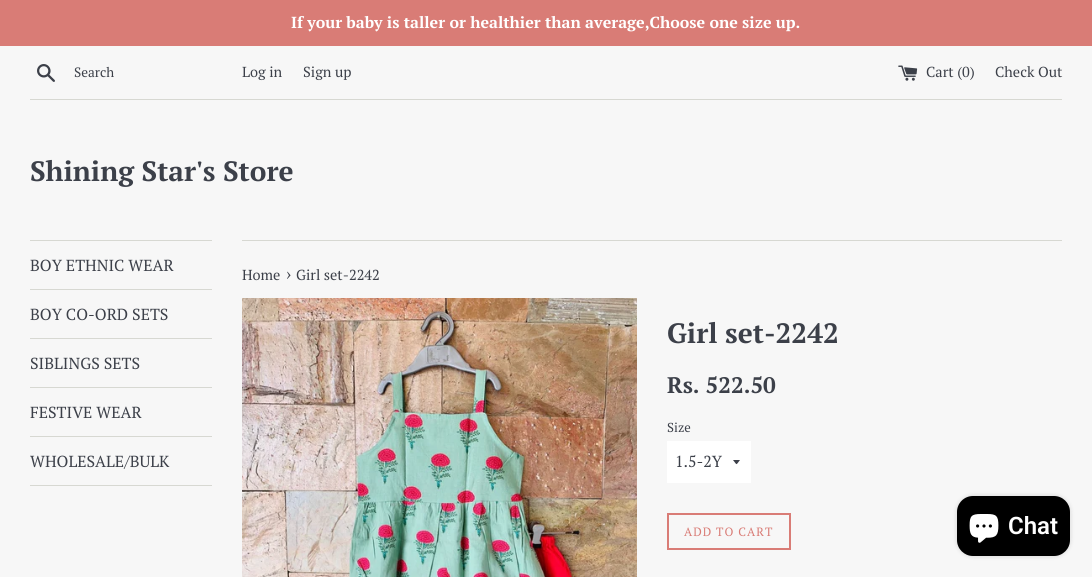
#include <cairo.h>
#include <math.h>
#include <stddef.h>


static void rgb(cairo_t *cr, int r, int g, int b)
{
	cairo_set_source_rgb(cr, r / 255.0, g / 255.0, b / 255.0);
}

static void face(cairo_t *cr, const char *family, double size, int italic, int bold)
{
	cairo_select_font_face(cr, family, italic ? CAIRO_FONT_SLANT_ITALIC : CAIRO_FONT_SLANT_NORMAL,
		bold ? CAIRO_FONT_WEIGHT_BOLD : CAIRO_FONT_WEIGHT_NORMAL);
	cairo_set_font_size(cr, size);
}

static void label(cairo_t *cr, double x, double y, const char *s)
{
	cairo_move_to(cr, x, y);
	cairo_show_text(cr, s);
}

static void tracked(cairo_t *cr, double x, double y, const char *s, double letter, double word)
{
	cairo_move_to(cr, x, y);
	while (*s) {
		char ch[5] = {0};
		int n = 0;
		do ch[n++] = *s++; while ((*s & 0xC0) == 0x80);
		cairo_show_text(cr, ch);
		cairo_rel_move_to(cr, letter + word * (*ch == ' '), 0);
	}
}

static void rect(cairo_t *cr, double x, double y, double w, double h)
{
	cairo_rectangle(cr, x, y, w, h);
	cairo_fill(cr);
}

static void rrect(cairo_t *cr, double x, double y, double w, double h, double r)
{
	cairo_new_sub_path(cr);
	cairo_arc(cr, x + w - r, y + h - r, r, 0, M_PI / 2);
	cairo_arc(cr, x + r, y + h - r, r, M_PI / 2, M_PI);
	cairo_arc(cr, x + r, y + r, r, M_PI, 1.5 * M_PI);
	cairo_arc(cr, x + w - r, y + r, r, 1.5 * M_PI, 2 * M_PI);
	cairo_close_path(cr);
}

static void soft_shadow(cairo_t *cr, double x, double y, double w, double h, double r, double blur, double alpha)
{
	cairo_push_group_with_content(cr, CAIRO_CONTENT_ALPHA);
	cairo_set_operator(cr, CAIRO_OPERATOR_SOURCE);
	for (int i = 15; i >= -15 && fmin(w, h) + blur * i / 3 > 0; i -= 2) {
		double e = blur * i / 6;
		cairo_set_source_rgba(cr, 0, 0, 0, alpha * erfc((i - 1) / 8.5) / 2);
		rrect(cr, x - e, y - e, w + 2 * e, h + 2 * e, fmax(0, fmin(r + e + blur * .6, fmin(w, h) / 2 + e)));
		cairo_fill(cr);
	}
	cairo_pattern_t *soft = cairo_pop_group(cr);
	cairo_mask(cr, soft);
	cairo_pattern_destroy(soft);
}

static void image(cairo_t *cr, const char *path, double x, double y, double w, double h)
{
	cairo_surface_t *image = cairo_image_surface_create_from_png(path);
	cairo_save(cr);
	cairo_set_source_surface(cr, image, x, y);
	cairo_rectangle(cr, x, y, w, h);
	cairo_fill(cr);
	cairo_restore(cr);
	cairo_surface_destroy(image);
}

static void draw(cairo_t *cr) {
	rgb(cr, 247, 247, 247);
	cairo_paint(cr);
	rgb(cr, 217, 124, 118);
	rect(cr, 0, 0, 1092, 46);
	face(cr, "PT Serif", 16, 0, 1);
	rgb(cr, 255, 255, 255);
	label(cr, 291, 28, "If your baby is taller or healthier than average,Choose one size up.");
	image(cr, "image0.png", 37, 64, 18, 18);
	face(cr, "PT Serif", 13.5, 0, 0);
	rgb(cr, 60, 64, 73);
	label(cr, 74, 77, "Search");
	face(cr, "PT Serif", 14.5, 0, 0);
	label(cr, 242, 77, "Log in");
	label(cr, 303, 77, "Sign up");
	image(cr, "image1.png", 898, 65, 20, 16);
	label(cr, 926, 77, "Cart (0)");
	label(cr, 995, 77, "Check Out");
	rgb(cr, 215, 216, 210);
	rect(cr, 30, 99, 1032, 1);
	face(cr, "PT Serif", 28, 0, 1);
	rgb(cr, 60, 64, 73);
	label(cr, 30, 181, "Shining Star's Store");
	rgb(cr, 215, 216, 210);
	rect(cr, 30, 240, 182, 1);
	rect(cr, 30, 289, 182, 1);
	face(cr, "PT Serif", 16, 0, 0);
	rgb(cr, 60, 64, 73);
	label(cr, 30, 271, "BOY ETHNIC WEAR");
	rgb(cr, 215, 216, 210);
	rect(cr, 30, 338, 182, 1);
	rgb(cr, 60, 64, 73);
	label(cr, 30, 320, "BOY CO-ORD SETS");
	rgb(cr, 215, 216, 210);
	rect(cr, 30, 387, 182, 1);
	rgb(cr, 60, 64, 73);
	label(cr, 30, 369, "SIBLINGS SETS");
	rgb(cr, 215, 216, 210);
	rect(cr, 30, 436, 182, 1);
	rgb(cr, 60, 64, 73);
	label(cr, 30, 418, "FESTIVE WEAR");
	rgb(cr, 215, 216, 210);
	rect(cr, 30, 485, 182, 1);
	rgb(cr, 60, 64, 73);
	label(cr, 30, 467, "WHOLESALE/BULK");
	rgb(cr, 215, 216, 210);
	rect(cr, 242, 240, 820, 1);
	face(cr, "PT Serif", 14.5, 0, 0);
	rgb(cr, 60, 64, 73);
	label(cr, 242, 280, "Home");
	face(cr, "PT Serif", 18, 0, 0);
	label(cr, 286, 280, "›");
	face(cr, "PT Serif", 14.5, 0, 0);
	label(cr, 296, 280, "Girl set-2242");
	image(cr, "image2.png", 242, 298, 395, 279);
	face(cr, "PT Serif", 28, 0, 1);
	label(cr, 667, 343, "Girl set-2242");
	face(cr, "PT Serif", 22.5, 0, 1);
	label(cr, 667, 393, "Rs. 522.50");
	face(cr, "PT Serif", 13, 0, 0);
	label(cr, 667, 432, "Size");
	rgb(cr, 255, 255, 255);
	rect(cr, 667, 441, 84, 42);
	rgb(cr, 60, 64, 73);
	cairo_new_path(cr);
	cairo_move_to(cr, 733, 460);
	cairo_curve_to(cr, 737.5, 465.5, 735.5, 465.5, 740, 460);
	cairo_close_path(cr);
	cairo_fill(cr);
	face(cr, "PT Serif", 16, 0, 0);
	label(cr, 675, 467, "1.5-2Y");
	cairo_rectangle(cr, 668, 514, 122, 35);
	rgb(cr, 217, 124, 118);
	cairo_stroke(cr);
	face(cr, "PT Serif", 12, 0, 0);
	tracked(cr, 684, 536, "ADD TO CART", 1, 0);
	rgb(cr, 0, 0, 0);
	soft_shadow(cr, 957, 496, 113, 60, 16, 2.5, 0.15);
	rgb(cr, 0, 0, 0);
	rrect(cr, 957, 496, 113, 60, 16);
	cairo_fill(cr);
	image(cr, "image3.png", 969, 514, 30, 29);
	face(cr, "Roboto SemiBold", 24, 0, 0);
	rgb(cr, 255, 255, 255);
	label(cr, 1008, 534, "Chat");
}

int main(void) {
	cairo_surface_t *surface = cairo_image_surface_create(CAIRO_FORMAT_RGB24, 1092, 577);
	cairo_t *cr = cairo_create(surface);
	cairo_font_options_t *options = cairo_font_options_create();
	cairo_font_options_set_hint_metrics(options, CAIRO_HINT_METRICS_OFF);
	cairo_font_options_set_hint_style(options, CAIRO_HINT_STYLE_NONE);
	cairo_set_font_options(cr, options);
	cairo_set_miter_limit(cr, 4);
	draw(cr);
	cairo_surface_write_to_png(surface, "render.png");
	cairo_font_options_destroy(options);
	cairo_destroy(cr);
	cairo_surface_destroy(surface);
	return 0;
}
